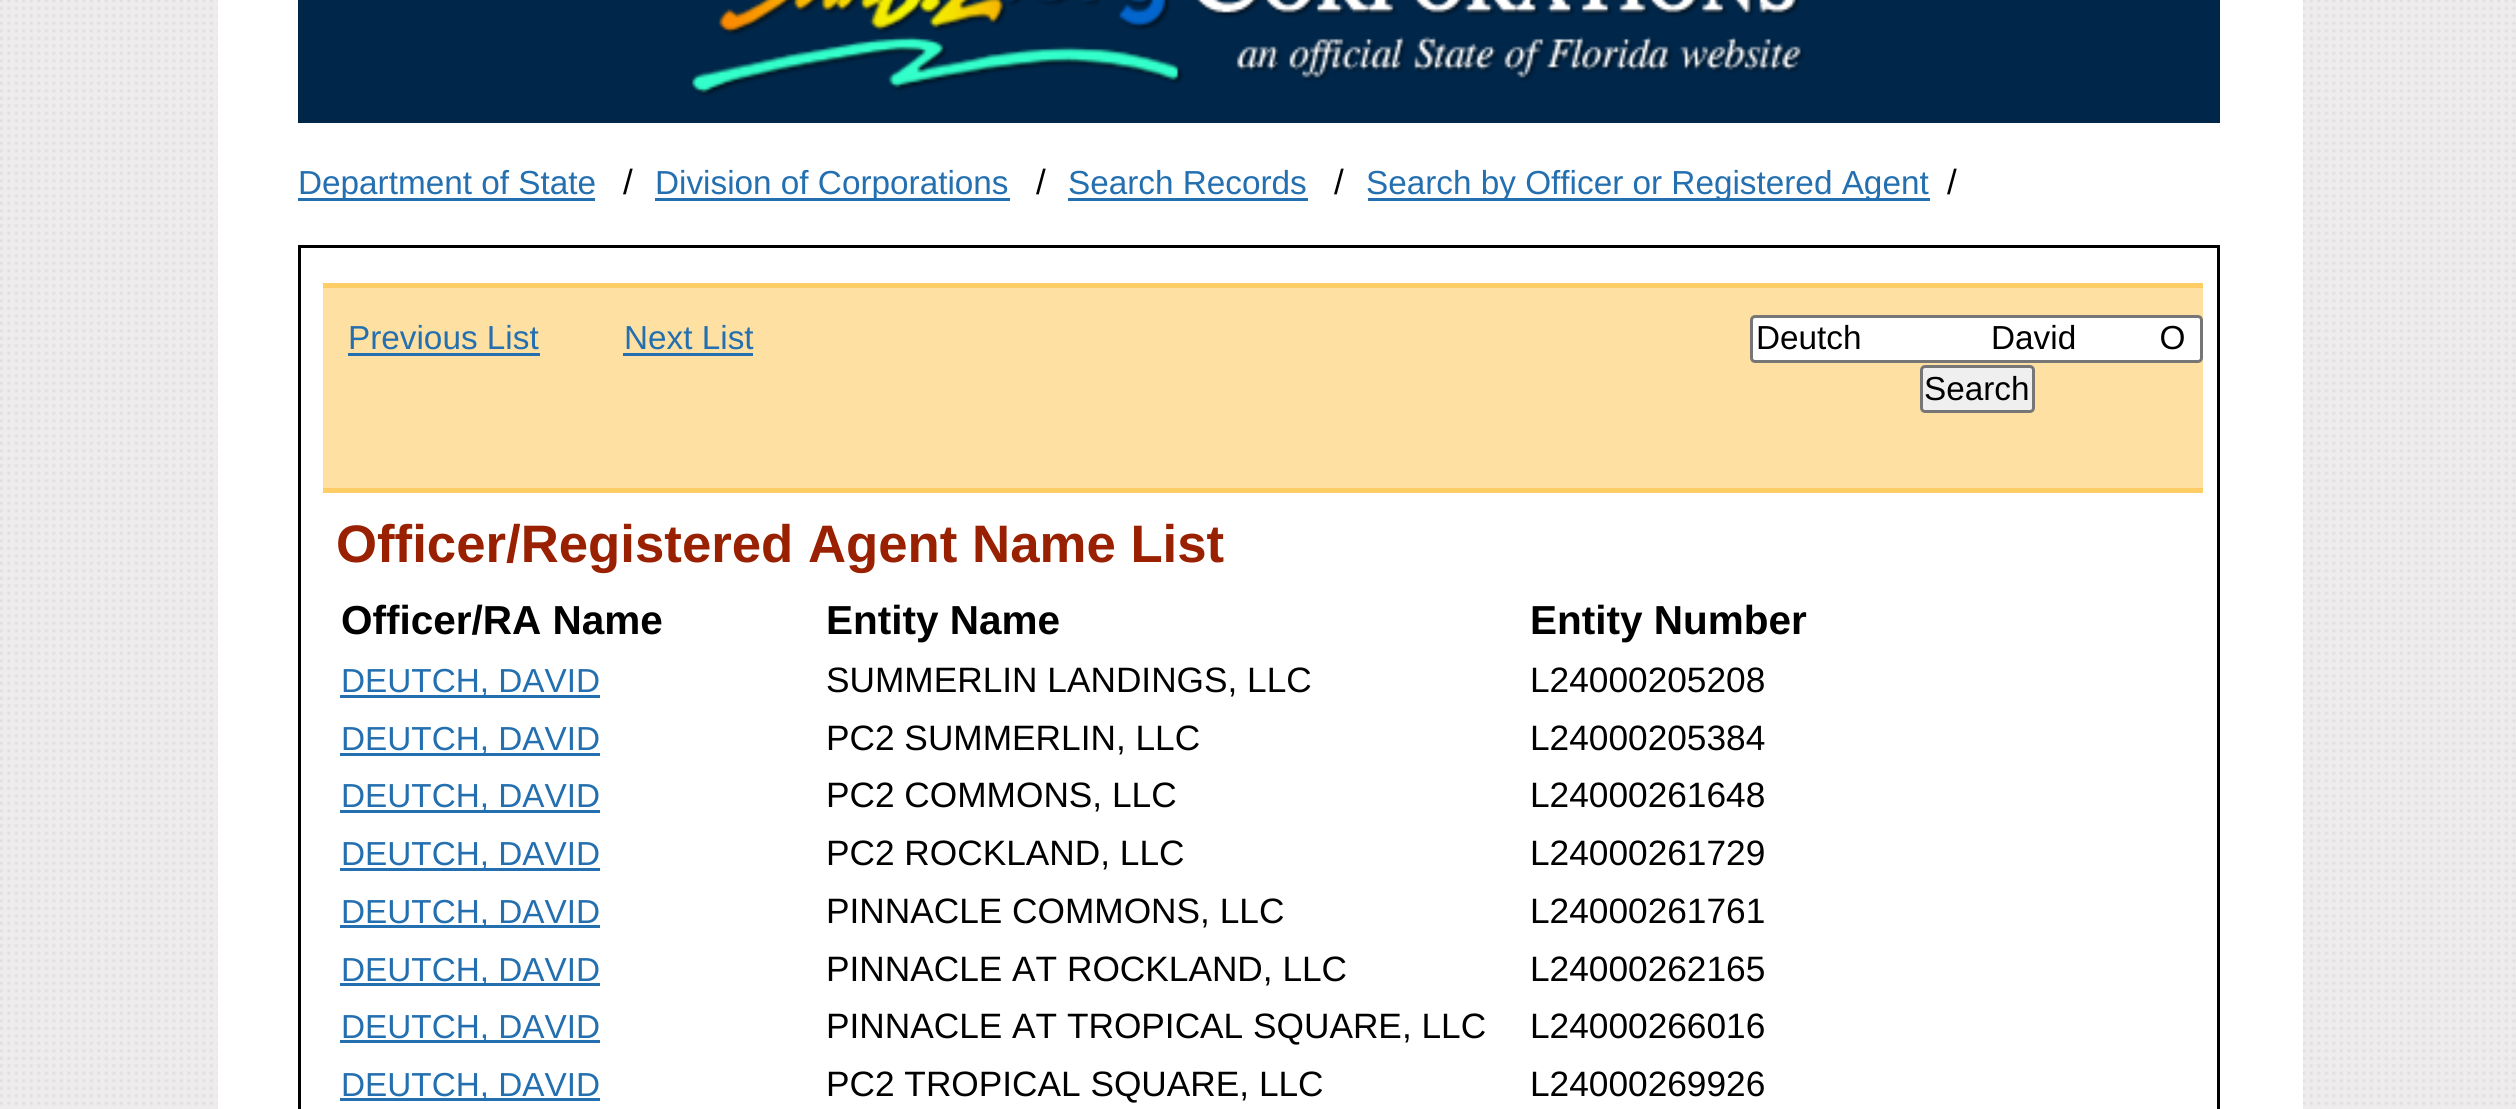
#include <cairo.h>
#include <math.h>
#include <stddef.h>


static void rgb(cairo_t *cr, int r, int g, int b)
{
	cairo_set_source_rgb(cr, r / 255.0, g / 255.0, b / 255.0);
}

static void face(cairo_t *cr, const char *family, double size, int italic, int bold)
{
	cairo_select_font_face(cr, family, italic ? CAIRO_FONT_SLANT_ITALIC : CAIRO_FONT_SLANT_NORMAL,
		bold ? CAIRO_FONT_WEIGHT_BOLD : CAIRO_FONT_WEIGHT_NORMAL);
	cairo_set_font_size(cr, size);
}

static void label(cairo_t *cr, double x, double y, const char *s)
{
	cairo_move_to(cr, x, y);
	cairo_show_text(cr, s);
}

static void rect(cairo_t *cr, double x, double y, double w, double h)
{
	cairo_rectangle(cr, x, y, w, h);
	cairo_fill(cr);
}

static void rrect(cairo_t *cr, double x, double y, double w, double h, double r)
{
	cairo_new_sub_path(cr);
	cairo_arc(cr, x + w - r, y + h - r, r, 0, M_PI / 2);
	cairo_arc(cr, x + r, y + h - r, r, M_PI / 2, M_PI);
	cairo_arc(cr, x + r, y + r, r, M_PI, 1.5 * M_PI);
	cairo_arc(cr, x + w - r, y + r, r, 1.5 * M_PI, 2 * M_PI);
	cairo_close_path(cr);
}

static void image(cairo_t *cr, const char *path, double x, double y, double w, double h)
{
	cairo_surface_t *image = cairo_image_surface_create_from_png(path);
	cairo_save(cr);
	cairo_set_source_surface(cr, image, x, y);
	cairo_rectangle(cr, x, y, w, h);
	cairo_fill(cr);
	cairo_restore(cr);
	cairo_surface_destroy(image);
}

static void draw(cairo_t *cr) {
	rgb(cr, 255, 255, 255);
	cairo_paint(cr);
	image(cr, "image0.png", 0, 0, 2516, 1109);
	rgb(cr, 255, 255, 255);
	rect(cr, 218, 0, 2085, 1109);
	rgb(cr, 0, 38, 73);
	rect(cr, 298, 0, 1922, 123);
	image(cr, "image1.png", 691, 0, 1114, 97);
	rgb(cr, 35, 111, 175);
	rect(cr, 298, 198, 297, 3);
	face(cr, "Liberation Sans", 33.3, 0, 0);
	label(cr, 298, 194, "Department of State");
	face(cr, "Liberation Sans", 35, 0, 0);
	rgb(cr, 0, 0, 0);
	label(cr, 623, 194, "/");
	rgb(cr, 35, 111, 175);
	rect(cr, 655, 198, 355, 3);
	face(cr, "Liberation Sans", 33.3, 0, 0);
	label(cr, 655, 194, "Division of Corporations");
	face(cr, "Liberation Sans", 35, 0, 0);
	rgb(cr, 0, 0, 0);
	label(cr, 1036, 194, "/");
	face(cr, "Liberation Sans", 33.3, 0, 0);
	rgb(cr, 35, 111, 175);
	label(cr, 1068, 194, "Search Records");
	rect(cr, 1068, 198, 240, 3);
	face(cr, "Liberation Sans", 35, 0, 0);
	rgb(cr, 0, 0, 0);
	label(cr, 1334, 194, "/");
	rgb(cr, 35, 111, 175);
	rect(cr, 1368, 198, 562, 3);
	face(cr, "Liberation Sans", 33.3, 0, 0);
	label(cr, 1366, 194, "Search by Officer or Registered Agent");
	face(cr, "Liberation Sans", 35, 0, 0);
	rgb(cr, 0, 0, 0);
	label(cr, 1947, 194, "/");
	cairo_rectangle(cr, 299.5, 246.5, 1919, 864);
	cairo_set_line_width(cr, 3);
	cairo_stroke(cr);
	rgb(cr, 255, 224, 163);
	rect(cr, 323, 288, 1880, 200);
	rgb(cr, 255, 204, 102);
	rect(cr, 323, 283, 1880, 5);
	rect(cr, 323, 488, 1880, 5);
	face(cr, "Liberation Sans", 33.3, 0, 0);
	rgb(cr, 35, 111, 175);
	label(cr, 348, 349, "Previous List");
	rect(cr, 348, 353, 192, 3);
	label(cr, 624, 349, "Next List");
	rect(cr, 623, 353, 130, 3);
	rgb(cr, 255, 255, 255);
	rrect(cr, 1751.5, 316.5, 450, 45, 3.5);
	cairo_fill_preserve(cr);
	rgb(cr, 118, 118, 118);
	cairo_stroke(cr);
	rgb(cr, 0, 0, 0);
	label(cr, 1756, 349, "Deutch              David         O");
	rgb(cr, 239, 239, 239);
	rrect(cr, 1921.5, 366.5, 112, 45, 3.5);
	cairo_fill_preserve(cr);
	rgb(cr, 118, 118, 118);
	cairo_stroke(cr);
	rgb(cr, 0, 0, 0);
	label(cr, 1924, 400, "Search");
	face(cr, "Liberation Sans", 52.75, 0, 1);
	rgb(cr, 153, 32, 0);
	label(cr, 336, 562, "Officer/Registered Agent Name List");
	face(cr, "Liberation Sans", 40.5, 0, 1);
	rgb(cr, 0, 0, 0);
	label(cr, 341, 634, "Officer/RA Name");
	label(cr, 826, 634, "Entity Name");
	label(cr, 1530, 634, "Entity Number");
	rgb(cr, 35, 111, 175);
	rect(cr, 340, 695, 260, 3);
	face(cr, "Liberation Sans", 33.3, 0, 0);
	label(cr, 341, 692, "DEUTCH, DAVID");
	face(cr, "Liberation Sans", 35.25, 0, 0);
	rgb(cr, 0, 0, 0);
	label(cr, 826, 692, "SUMMERLIN LANDINGS, LLC");
	label(cr, 1530, 692, "L24000205208");
	rgb(cr, 35, 111, 175);
	rect(cr, 340, 753, 260, 3);
	face(cr, "Liberation Sans", 33.3, 0, 0);
	label(cr, 341, 750, "DEUTCH, DAVID");
	face(cr, "Liberation Sans", 35.25, 0, 0);
	rgb(cr, 0, 0, 0);
	label(cr, 826, 750, "PC2 SUMMERLIN, LLC");
	label(cr, 1530, 750, "L24000205384");
	rgb(cr, 35, 111, 175);
	rect(cr, 340, 810, 260, 3);
	face(cr, "Liberation Sans", 33.3, 0, 0);
	label(cr, 341, 807, "DEUTCH, DAVID");
	face(cr, "Liberation Sans", 35.25, 0, 0);
	rgb(cr, 0, 0, 0);
	label(cr, 826, 807, "PC2 COMMONS, LLC");
	label(cr, 1530, 807, "L24000261648");
	rgb(cr, 35, 111, 175);
	rect(cr, 340, 868, 260, 3);
	face(cr, "Liberation Sans", 33.3, 0, 0);
	label(cr, 341, 865, "DEUTCH, DAVID");
	face(cr, "Liberation Sans", 35.25, 0, 0);
	rgb(cr, 0, 0, 0);
	label(cr, 826, 865, "PC2 ROCKLAND, LLC");
	label(cr, 1530, 865, "L24000261729");
	rgb(cr, 35, 111, 175);
	rect(cr, 340, 925, 260, 3);
	face(cr, "Liberation Sans", 33.3, 0, 0);
	label(cr, 341, 923, "DEUTCH, DAVID");
	face(cr, "Liberation Sans", 35.25, 0, 0);
	rgb(cr, 0, 0, 0);
	label(cr, 826, 923, "PINNACLE COMMONS, LLC");
	label(cr, 1530, 923, "L24000261761");
	rgb(cr, 35, 111, 175);
	rect(cr, 340, 983, 260, 3);
	face(cr, "Liberation Sans", 33.3, 0, 0);
	label(cr, 341, 981, "DEUTCH, DAVID");
	face(cr, "Liberation Sans", 35.25, 0, 0);
	rgb(cr, 0, 0, 0);
	label(cr, 826, 981, "PINNACLE AT ROCKLAND, LLC");
	label(cr, 1530, 981, "L24000262165");
	rgb(cr, 35, 111, 175);
	rect(cr, 340, 1040, 260, 3);
	face(cr, "Liberation Sans", 33.3, 0, 0);
	label(cr, 341, 1038, "DEUTCH, DAVID");
	face(cr, "Liberation Sans", 35.25, 0, 0);
	rgb(cr, 0, 0, 0);
	label(cr, 826, 1038, "PINNACLE AT TROPICAL SQUARE, LLC");
	label(cr, 1530, 1038, "L24000266016");
	rgb(cr, 35, 111, 175);
	rect(cr, 340, 1098, 260, 3);
	face(cr, "Liberation Sans", 33.3, 0, 0);
	label(cr, 341, 1096, "DEUTCH, DAVID");
	face(cr, "Liberation Sans", 35.25, 0, 0);
	rgb(cr, 0, 0, 0);
	label(cr, 826, 1096, "PC2 TROPICAL SQUARE, LLC");
	label(cr, 1530, 1096, "L24000269926");
}

int main(void) {
	cairo_surface_t *surface = cairo_image_surface_create(CAIRO_FORMAT_RGB24, 2516, 1109);
	cairo_t *cr = cairo_create(surface);
	cairo_font_options_t *options = cairo_font_options_create();
	cairo_font_options_set_hint_metrics(options, CAIRO_HINT_METRICS_OFF);
	cairo_font_options_set_hint_style(options, CAIRO_HINT_STYLE_NONE);
	cairo_set_font_options(cr, options);
	cairo_set_miter_limit(cr, 4);
	draw(cr);
	cairo_surface_write_to_png(surface, "render.png");
	cairo_font_options_destroy(options);
	cairo_destroy(cr);
	cairo_surface_destroy(surface);
	return 0;
}
